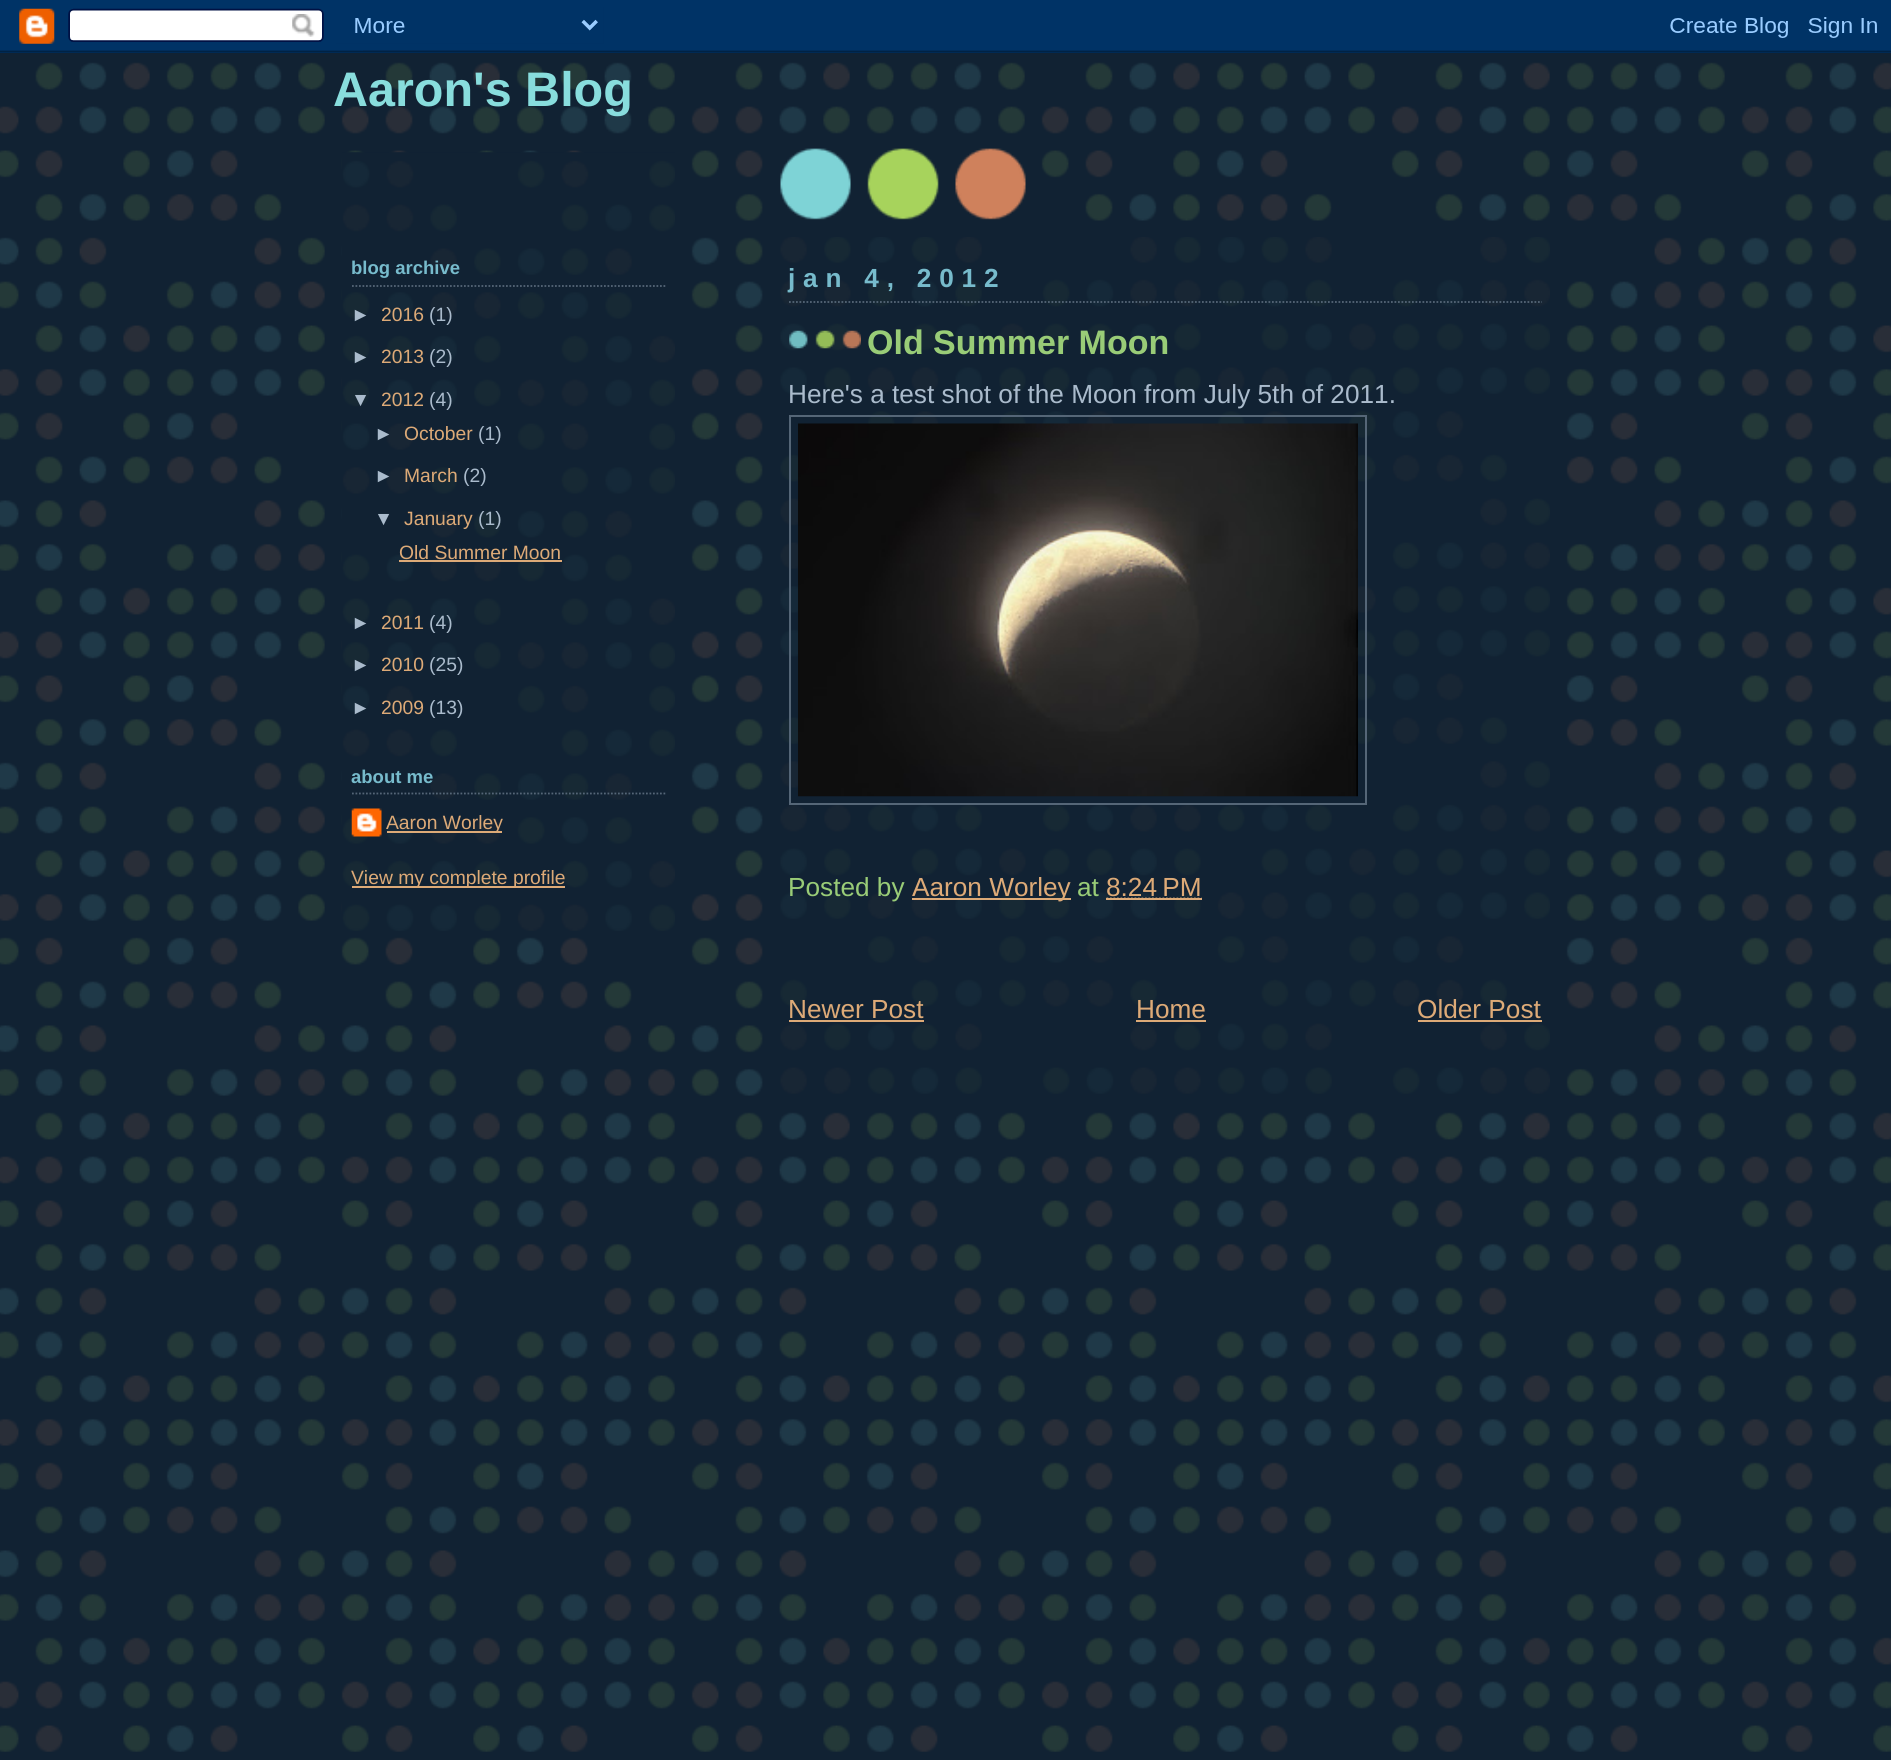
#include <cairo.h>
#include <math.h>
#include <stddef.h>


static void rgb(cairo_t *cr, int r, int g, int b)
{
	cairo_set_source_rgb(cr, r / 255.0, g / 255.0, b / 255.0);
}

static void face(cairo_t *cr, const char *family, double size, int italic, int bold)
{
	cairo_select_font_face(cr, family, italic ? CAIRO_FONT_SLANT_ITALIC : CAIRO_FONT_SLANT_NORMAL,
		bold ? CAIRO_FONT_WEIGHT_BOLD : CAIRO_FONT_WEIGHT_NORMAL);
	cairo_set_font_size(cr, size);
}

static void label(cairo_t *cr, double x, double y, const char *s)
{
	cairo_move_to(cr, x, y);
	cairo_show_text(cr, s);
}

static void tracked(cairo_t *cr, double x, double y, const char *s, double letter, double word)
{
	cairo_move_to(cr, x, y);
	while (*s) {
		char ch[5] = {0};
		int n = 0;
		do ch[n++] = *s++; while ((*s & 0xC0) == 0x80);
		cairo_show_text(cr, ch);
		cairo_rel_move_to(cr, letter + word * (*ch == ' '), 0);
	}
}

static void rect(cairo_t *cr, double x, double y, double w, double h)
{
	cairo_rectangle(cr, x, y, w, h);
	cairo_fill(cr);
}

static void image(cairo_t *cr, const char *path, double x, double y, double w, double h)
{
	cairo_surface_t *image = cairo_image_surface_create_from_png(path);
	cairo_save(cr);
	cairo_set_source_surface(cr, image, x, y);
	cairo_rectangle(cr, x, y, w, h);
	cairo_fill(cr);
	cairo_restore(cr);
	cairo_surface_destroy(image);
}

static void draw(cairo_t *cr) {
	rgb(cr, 17, 34, 51);
	cairo_paint(cr);
	image(cr, "image0.png", 0, 50, 1891, 1702);
	image(cr, "image1.png", 0, 0, 1891, 53);
	image(cr, "image2.png", 779, 148, 247, 73);
	face(cr, "Liberation Sans", 48.5, 0, 1);
	rgb(cr, 136, 221, 221);
	label(cr, 333, 106, "Aaron's Blog");
	image(cr, "image3.png", 342, 152, 333, 779);
	cairo_new_path(cr);
	cairo_move_to(cr, 352, 286);
	cairo_line_to(cr, 667, 286);
	rgb(cr, 85, 102, 119);
	cairo_set_line_width(cr, 1.8);
	cairo_set_dash(cr, (double[]){1.75, 1.75}, 2, 0);
	cairo_stroke(cr);
	face(cr, "Liberation Sans", 18.5, 0, 1);
	rgb(cr, 119, 187, 204);
	label(cr, 351, 274, "blog archive");
	face(cr, "Liberation Sans", 19.3, 0, 0);
	rgb(cr, 170, 187, 204);
	label(cr, 351, 321, "►");
	rgb(cr, 221, 170, 119);
	label(cr, 381, 321, "2016");
	rgb(cr, 170, 187, 204);
	label(cr, 429, 321, "(1)");
	label(cr, 351, 363, "►");
	rgb(cr, 221, 170, 119);
	label(cr, 381, 363, "2013");
	rgb(cr, 170, 187, 204);
	label(cr, 429, 363, "(2)");
	label(cr, 351, 406, "▼");
	rgb(cr, 221, 170, 119);
	label(cr, 381, 406, "2012");
	rgb(cr, 170, 187, 204);
	label(cr, 429, 406, "(4)");
	label(cr, 374, 440, "►");
	rgb(cr, 221, 170, 119);
	label(cr, 404, 440, "October");
	rgb(cr, 170, 187, 204);
	label(cr, 478, 440, "(1)");
	label(cr, 374, 482, "►");
	rgb(cr, 221, 170, 119);
	label(cr, 404, 482, "March");
	rgb(cr, 170, 187, 204);
	label(cr, 463, 482, "(2)");
	label(cr, 374, 525, "▼");
	rgb(cr, 221, 170, 119);
	label(cr, 404, 525, "January");
	rgb(cr, 170, 187, 204);
	label(cr, 478, 525, "(1)");
	rgb(cr, 221, 170, 119);
	label(cr, 399, 559, "Old Summer Moon");
	rect(cr, 399, 560, 163, 2);
	rgb(cr, 170, 187, 204);
	label(cr, 351, 629, "►");
	rgb(cr, 221, 170, 119);
	label(cr, 381, 629, "2011");
	rgb(cr, 170, 187, 204);
	label(cr, 429, 629, "(4)");
	label(cr, 351, 671, "►");
	rgb(cr, 221, 170, 119);
	label(cr, 381, 671, "2010");
	rgb(cr, 170, 187, 204);
	label(cr, 429, 671, "(25)");
	label(cr, 351, 714, "►");
	rgb(cr, 221, 170, 119);
	label(cr, 381, 714, "2009");
	rgb(cr, 170, 187, 204);
	label(cr, 429, 714, "(13)");
	cairo_new_path(cr);
	cairo_move_to(cr, 352, 793.5);
	cairo_line_to(cr, 667, 793.5);
	rgb(cr, 85, 102, 119);
	cairo_stroke(cr);
	face(cr, "Liberation Sans", 18.5, 0, 1);
	rgb(cr, 119, 187, 204);
	label(cr, 351, 783, "about me");
	image(cr, "image4.png", 351, 808, 31, 29);
	rgb(cr, 221, 170, 119);
	rect(cr, 387, 831, 115, 2);
	face(cr, "Liberation Sans", 19.3, 0, 0);
	label(cr, 386, 829, "Aaron Worley");
	rect(cr, 352, 886, 213, 2);
	label(cr, 351, 884, "View my complete profile");
	image(cr, "image5.png", 779, 237, 771, 859);
	cairo_new_path(cr);
	cairo_move_to(cr, 789, 302);
	cairo_line_to(cr, 1542, 302);
	rgb(cr, 85, 102, 119);
	cairo_stroke(cr);
	face(cr, "Liberation Sans", 26.2, 0, 1);
	rgb(cr, 119, 187, 204);
	tracked(cr, 788, 287, "jan 4, 2012", 7.8, 0);
	image(cr, "image6.png", 789, 330, 72, 19);
	face(cr, "Liberation Sans", 34, 0, 1);
	rgb(cr, 153, 204, 119);
	label(cr, 867, 354, "Old Summer Moon");
	face(cr, "Liberation Sans", 26.2, 0, 0);
	rgb(cr, 170, 187, 204);
	label(cr, 788, 403, "Here's a test shot of the Moon from July 5th of 2011.");
	cairo_rectangle(cr, 790, 416, 576, 388);
	rgb(cr, 85, 102, 119);
	cairo_set_line_width(cr, 2);
	cairo_set_dash(cr, NULL, 0, 0);
	cairo_stroke(cr);
	image(cr, "image7.png", 798, 423, 560, 374);
	rgb(cr, 153, 204, 119);
	label(cr, 788, 896, "Posted by");
	rgb(cr, 221, 170, 119);
	rect(cr, 912, 898, 159, 2);
	label(cr, 912, 896, "Aaron Worley");
	rgb(cr, 153, 204, 119);
	label(cr, 1077, 896, "at");
	rgb(cr, 221, 170, 119);
	label(cr, 1106, 896, "8:24 PM");
	cairo_new_path(cr);
	cairo_move_to(cr, 1106.5, 898.5);
	cairo_line_to(cr, 1201.5, 898.5);
	cairo_set_line_width(cr, 1.8);
	cairo_set_dash(cr, (double[]){1.75, 1.75}, 2, 0);
	cairo_stroke(cr);
	rect(cr, 1106, 898, 96, 2);
	label(cr, 788, 1018, "Newer Post");
	rect(cr, 789, 1020, 135, 2);
	label(cr, 1136, 1018, "Home");
	rect(cr, 1136, 1020, 70, 2);
	label(cr, 1417, 1018, "Older Post");
	rect(cr, 1418, 1020, 124, 2);
}

int main(void) {
	cairo_surface_t *surface = cairo_image_surface_create(CAIRO_FORMAT_RGB24, 1891, 1760);
	cairo_t *cr = cairo_create(surface);
	cairo_font_options_t *options = cairo_font_options_create();
	cairo_font_options_set_hint_metrics(options, CAIRO_HINT_METRICS_OFF);
	cairo_font_options_set_hint_style(options, CAIRO_HINT_STYLE_NONE);
	cairo_set_font_options(cr, options);
	cairo_set_miter_limit(cr, 4);
	draw(cr);
	cairo_surface_write_to_png(surface, "render.png");
	cairo_font_options_destroy(options);
	cairo_destroy(cr);
	cairo_surface_destroy(surface);
	return 0;
}
